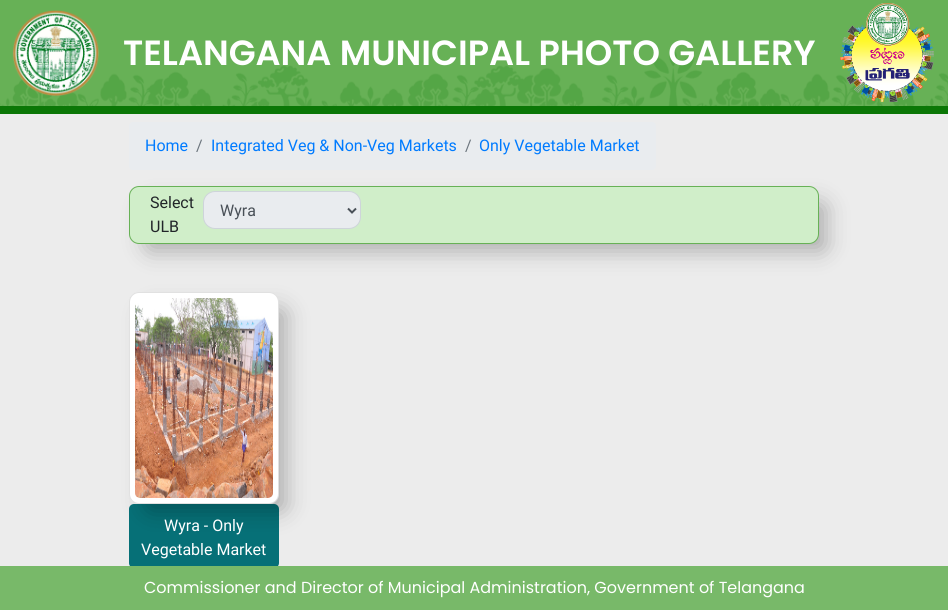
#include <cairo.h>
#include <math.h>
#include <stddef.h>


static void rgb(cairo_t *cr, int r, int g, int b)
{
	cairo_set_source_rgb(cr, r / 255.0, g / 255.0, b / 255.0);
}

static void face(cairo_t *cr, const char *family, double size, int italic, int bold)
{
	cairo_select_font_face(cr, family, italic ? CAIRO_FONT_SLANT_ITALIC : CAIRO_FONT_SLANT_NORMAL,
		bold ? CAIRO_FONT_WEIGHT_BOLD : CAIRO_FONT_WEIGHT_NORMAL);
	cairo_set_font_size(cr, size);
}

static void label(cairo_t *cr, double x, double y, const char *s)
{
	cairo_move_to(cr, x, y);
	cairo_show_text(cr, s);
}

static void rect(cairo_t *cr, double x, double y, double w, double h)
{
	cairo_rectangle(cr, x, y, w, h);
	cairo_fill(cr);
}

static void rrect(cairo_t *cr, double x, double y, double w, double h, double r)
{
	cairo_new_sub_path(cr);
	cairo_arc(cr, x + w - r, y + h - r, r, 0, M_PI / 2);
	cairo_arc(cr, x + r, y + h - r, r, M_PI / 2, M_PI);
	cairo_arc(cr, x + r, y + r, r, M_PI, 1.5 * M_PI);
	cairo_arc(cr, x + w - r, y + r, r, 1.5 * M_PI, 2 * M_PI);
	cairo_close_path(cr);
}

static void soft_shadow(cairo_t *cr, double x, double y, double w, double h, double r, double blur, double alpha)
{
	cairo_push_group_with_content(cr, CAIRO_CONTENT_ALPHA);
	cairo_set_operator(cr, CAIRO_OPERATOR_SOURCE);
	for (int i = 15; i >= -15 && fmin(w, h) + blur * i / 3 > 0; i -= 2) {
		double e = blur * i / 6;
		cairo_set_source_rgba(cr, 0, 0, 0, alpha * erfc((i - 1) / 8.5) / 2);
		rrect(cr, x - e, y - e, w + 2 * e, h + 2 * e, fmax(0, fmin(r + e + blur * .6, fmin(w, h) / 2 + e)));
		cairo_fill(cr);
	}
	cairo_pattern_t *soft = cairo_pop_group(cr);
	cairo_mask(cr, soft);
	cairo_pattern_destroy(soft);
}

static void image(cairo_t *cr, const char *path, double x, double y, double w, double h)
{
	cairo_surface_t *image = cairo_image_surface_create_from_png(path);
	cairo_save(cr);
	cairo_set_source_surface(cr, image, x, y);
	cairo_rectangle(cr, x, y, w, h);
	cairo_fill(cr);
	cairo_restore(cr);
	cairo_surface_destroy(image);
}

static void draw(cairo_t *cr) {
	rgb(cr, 236, 236, 236);
	cairo_paint(cr);
	rgb(cr, 103, 177, 86);
	rect(cr, 0, 0, 948, 106);
	image(cr, "image0.png", 0, 49, 948, 57);
	rgb(cr, 11, 119, 6);
	rect(cr, 0, 106, 948, 8);
	image(cr, "image1.png", 12, 10, 87, 86);
	face(cr, "Poppins SemiBold", 35, 0, 0);
	rgb(cr, 255, 255, 255);
	label(cr, 123, 65, "TELANGANA MUNICIPAL PHOTO GALLERY");
	image(cr, "image2.png", 840, 3, 94, 99);
	rgb(cr, 233, 236, 239);
	rrect(cr, 129, 122, 527, 48, 4);
	cairo_fill(cr);
	face(cr, "Roboto", 16, 0, 0);
	rgb(cr, 0, 123, 255);
	label(cr, 145, 151, "Home");
	rgb(cr, 108, 117, 125);
	label(cr, 196, 151, "/");
	rgb(cr, 0, 123, 255);
	label(cr, 211, 151, "Integrated Veg & Non-Veg Markets");
	rgb(cr, 108, 117, 125);
	label(cr, 465, 151, "/");
	rgb(cr, 0, 123, 255);
	label(cr, 479, 151, "Only Vegetable Market");
	rgb(cr, 0, 0, 0);
	soft_shadow(cr, 146, 203, 680, 48, 5, 11.5, 0.27);
	rgb(cr, 208, 238, 201);
	rrect(cr, 129.5, 186.5, 689, 57, 9.5);
	cairo_fill_preserve(cr);
	rgb(cr, 103, 177, 86);
	cairo_set_line_width(cr, 1);
	cairo_stroke(cr);
	rgb(cr, 33, 37, 41);
	label(cr, 150, 208, "Select");
	label(cr, 150, 232, "ULB");
	rgb(cr, 233, 236, 239);
	rrect(cr, 203.5, 191.5, 157, 37, 11.5);
	cairo_fill_preserve(cr);
	rgb(cr, 206, 212, 218);
	cairo_stroke(cr);
	cairo_new_path(cr);
	cairo_move_to(cr, 348, 208.5);
	cairo_line_to(cr, 352, 212.5);
	cairo_line_to(cr, 356, 208.5);
	rgb(cr, 73, 80, 87);
	cairo_set_line_width(cr, 2);
	cairo_stroke(cr);
	label(cr, 220, 216, "Wyra");
	rgb(cr, 6, 112, 119);
	rrect(cr, 129, 504, 150, 64, 5);
	cairo_fill(cr);
	rgb(cr, 0, 0, 0);
	soft_shadow(cr, 146, 309, 140, 202, 5, 11.5, 0.27);
	rgb(cr, 255, 255, 255);
	rrect(cr, 129, 292, 150, 212, 10);
	cairo_fill(cr);
	rrect(cr, 129.5, 292.5, 149, 211, 9.5);
	cairo_set_source_rgba(cr, 0, 0, 0, 0.12);
	cairo_set_line_width(cr, 1);
	cairo_stroke(cr);
	image(cr, "image3.png", 135, 298, 138, 200);
	rgb(cr, 255, 255, 255);
	label(cr, 164, 531, "Wyra - Only");
	label(cr, 141, 555, "Vegetable Market");
	rgb(cr, 120, 185, 105);
	rect(cr, 0, 566, 948, 44);
	face(cr, "Poppins", 16, 0, 0);
	rgb(cr, 255, 255, 255);
	label(cr, 144, 593, "Commissioner and Director of Municipal Administration, Government of Telangana");
}

int main(void) {
	cairo_surface_t *surface = cairo_image_surface_create(CAIRO_FORMAT_RGB24, 948, 610);
	cairo_t *cr = cairo_create(surface);
	cairo_font_options_t *options = cairo_font_options_create();
	cairo_font_options_set_hint_metrics(options, CAIRO_HINT_METRICS_OFF);
	cairo_font_options_set_hint_style(options, CAIRO_HINT_STYLE_NONE);
	cairo_set_font_options(cr, options);
	cairo_set_miter_limit(cr, 4);
	draw(cr);
	cairo_surface_write_to_png(surface, "render.png");
	cairo_font_options_destroy(options);
	cairo_destroy(cr);
	cairo_surface_destroy(surface);
	return 0;
}
